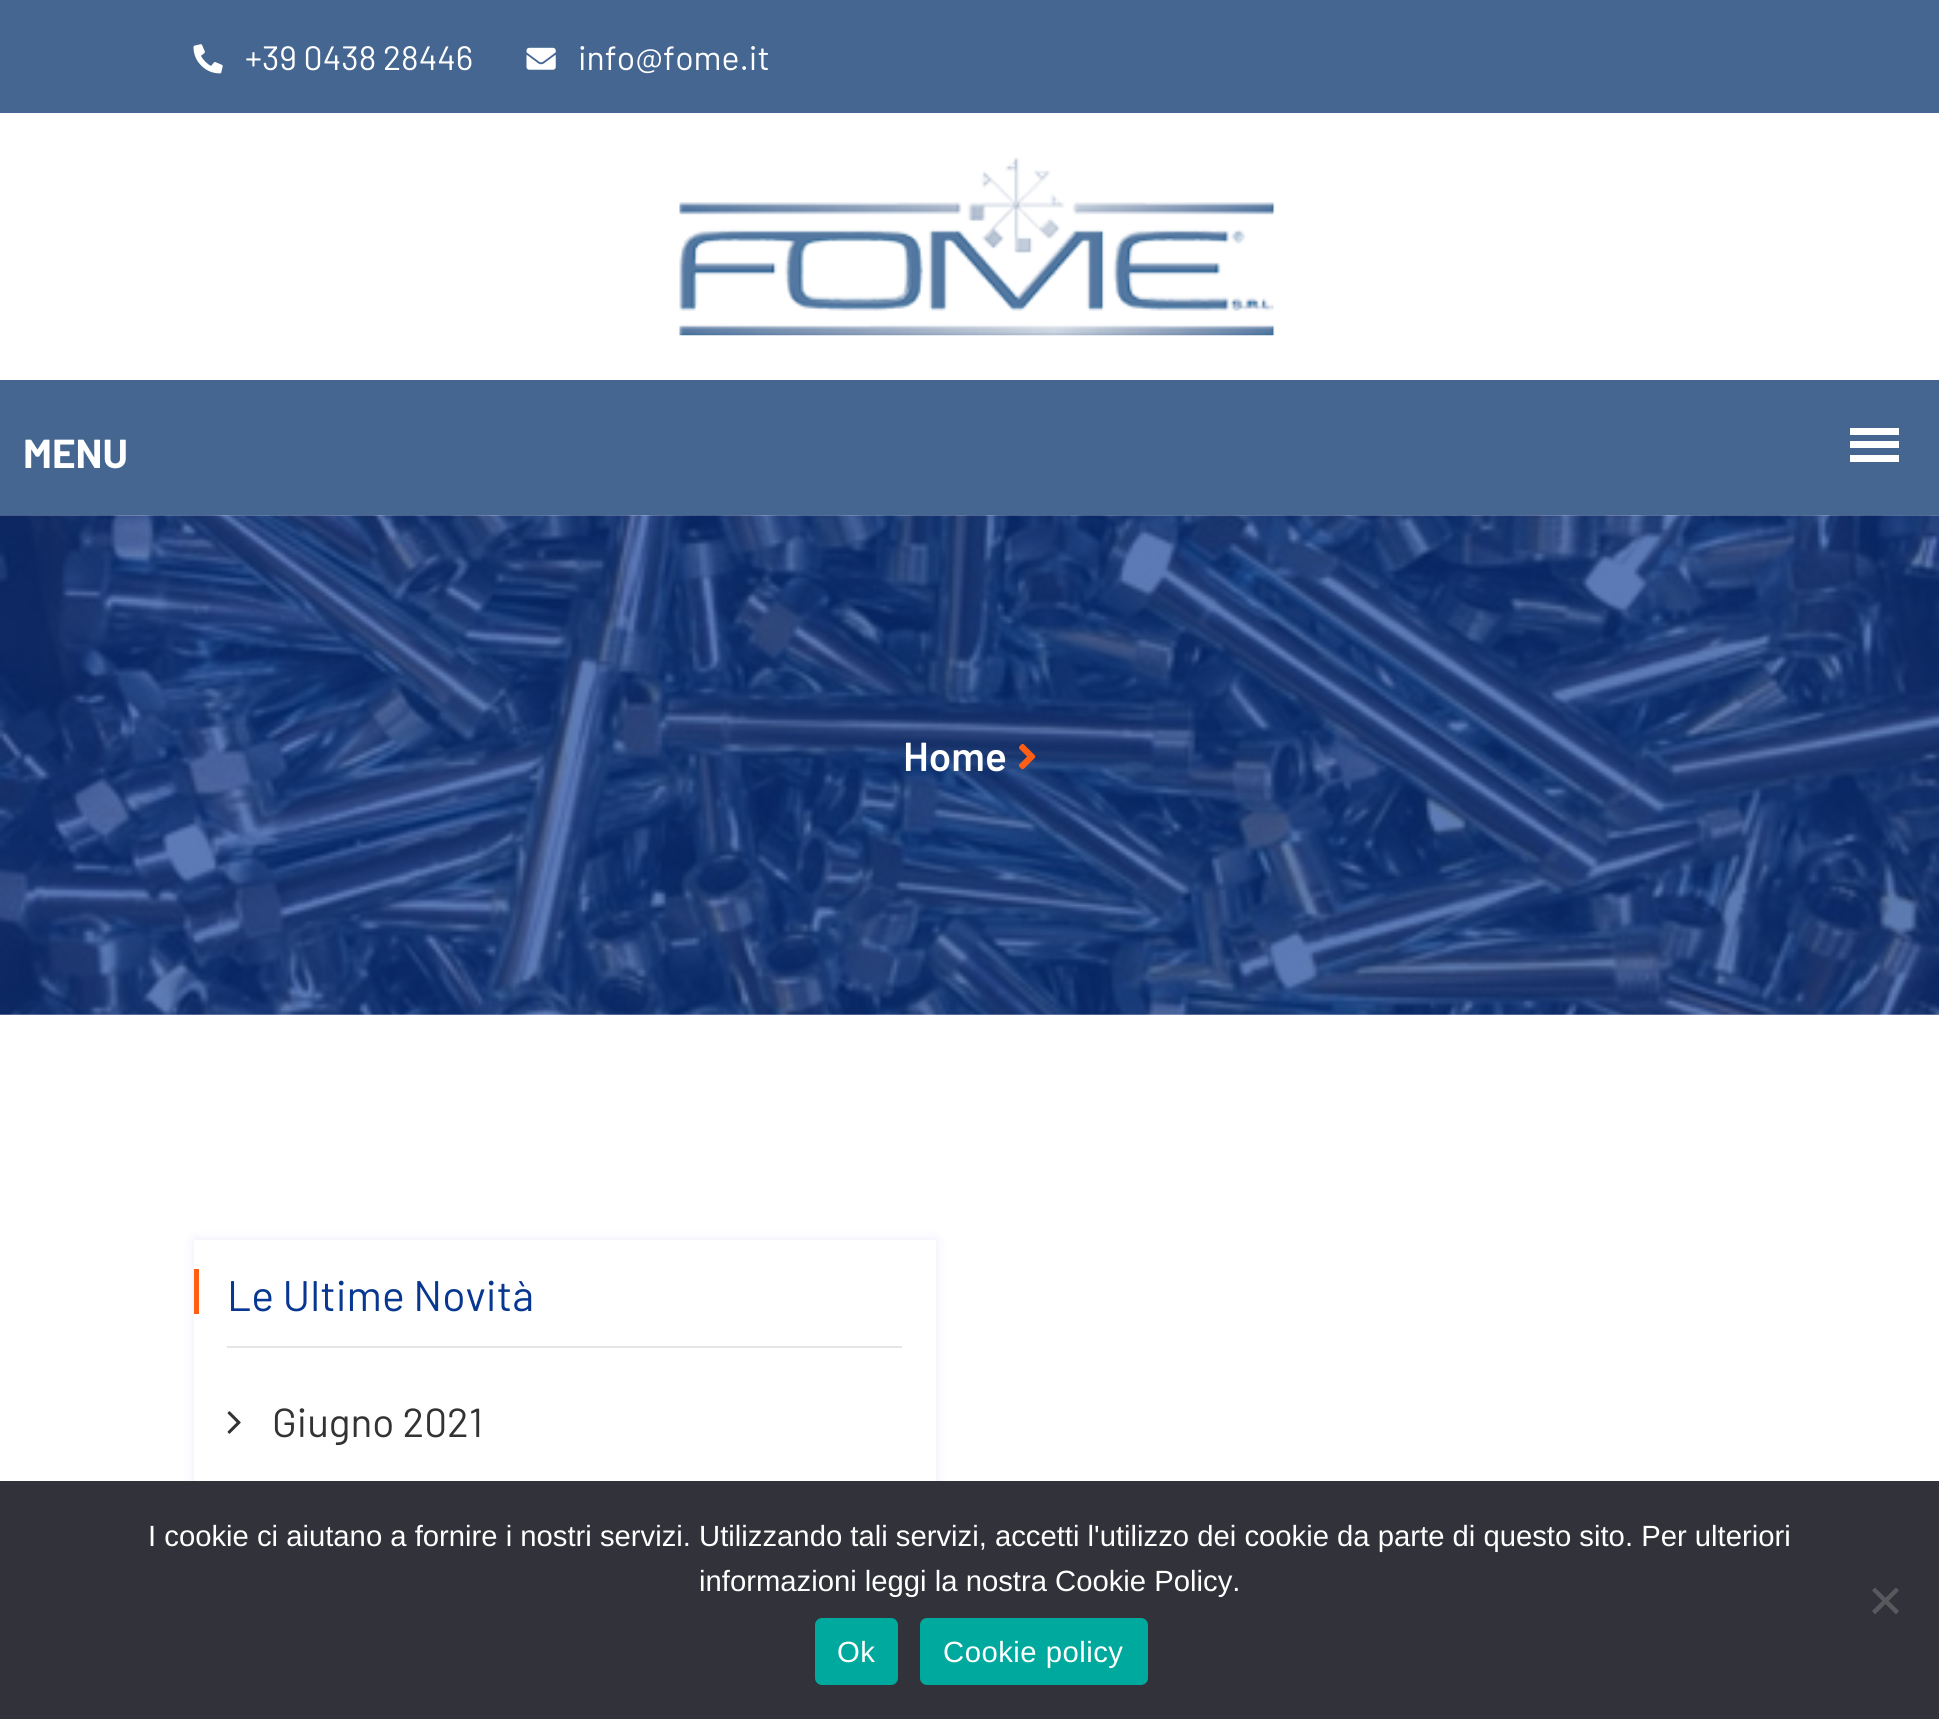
#include <cairo.h>
#include <math.h>
#include <stddef.h>


static void rgb(cairo_t *cr, int r, int g, int b)
{
	cairo_set_source_rgb(cr, r / 255.0, g / 255.0, b / 255.0);
}

static void face(cairo_t *cr, const char *family, double size, int italic, int bold)
{
	cairo_select_font_face(cr, family, italic ? CAIRO_FONT_SLANT_ITALIC : CAIRO_FONT_SLANT_NORMAL,
		bold ? CAIRO_FONT_WEIGHT_BOLD : CAIRO_FONT_WEIGHT_NORMAL);
	cairo_set_font_size(cr, size);
}

static void label(cairo_t *cr, double x, double y, const char *s)
{
	cairo_move_to(cr, x, y);
	cairo_show_text(cr, s);
}

static void tracked(cairo_t *cr, double x, double y, const char *s, double letter, double word)
{
	cairo_move_to(cr, x, y);
	while (*s) {
		char ch[5] = {0};
		int n = 0;
		do ch[n++] = *s++; while ((*s & 0xC0) == 0x80);
		cairo_show_text(cr, ch);
		cairo_rel_move_to(cr, letter + word * (*ch == ' '), 0);
	}
}

static void rect(cairo_t *cr, double x, double y, double w, double h)
{
	cairo_rectangle(cr, x, y, w, h);
	cairo_fill(cr);
}

static void rrect(cairo_t *cr, double x, double y, double w, double h, double r)
{
	cairo_new_sub_path(cr);
	cairo_arc(cr, x + w - r, y + h - r, r, 0, M_PI / 2);
	cairo_arc(cr, x + r, y + h - r, r, M_PI / 2, M_PI);
	cairo_arc(cr, x + r, y + r, r, M_PI, 1.5 * M_PI);
	cairo_arc(cr, x + w - r, y + r, r, 1.5 * M_PI, 2 * M_PI);
	cairo_close_path(cr);
}

static void soft_shadow(cairo_t *cr, double x, double y, double w, double h, double r, double blur, double alpha)
{
	cairo_push_group_with_content(cr, CAIRO_CONTENT_ALPHA);
	cairo_set_operator(cr, CAIRO_OPERATOR_SOURCE);
	for (int i = 15; i >= -15 && fmin(w, h) + blur * i / 3 > 0; i -= 2) {
		double e = blur * i / 6;
		cairo_set_source_rgba(cr, 0, 0, 0, alpha * erfc((i - 1) / 8.5) / 2);
		rrect(cr, x - e, y - e, w + 2 * e, h + 2 * e, fmax(0, fmin(r + e + blur * .6, fmin(w, h) / 2 + e)));
		cairo_fill(cr);
	}
	cairo_pattern_t *soft = cairo_pop_group(cr);
	cairo_mask(cr, soft);
	cairo_pattern_destroy(soft);
}

static void image(cairo_t *cr, const char *path, double x, double y, double w, double h)
{
	cairo_surface_t *image = cairo_image_surface_create_from_png(path);
	cairo_save(cr);
	cairo_set_source_surface(cr, image, x, y);
	cairo_rectangle(cr, x, y, w, h);
	cairo_fill(cr);
	cairo_restore(cr);
	cairo_surface_destroy(image);
}

static void draw(cairo_t *cr) {
	rgb(cr, 255, 255, 255);
	cairo_paint(cr);
	rgb(cr, 68, 102, 144);
	rect(cr, 0, 0, 1939, 113);
	image(cr, "image0.png", 193, 44, 30, 30);
	face(cr, "Barlow", 33.75, 0, 0);
	rgb(cr, 255, 255, 255);
	label(cr, 245, 70, "+39 0438 28446");
	image(cr, "image1.png", 526, 47, 30, 23);
	label(cr, 578, 70, "info@fome.it");
	image(cr, "image2.png", 679, 157, 596, 179);
	rgb(cr, 68, 102, 144);
	rect(cr, 0, 380, 1939, 135);
	face(cr, "Barlow", 40.5, 0, 1);
	rgb(cr, 255, 255, 255);
	label(cr, 23, 468, "MENU");
	rect(cr, 1850, 428, 49, 7);
	rect(cr, 1850, 441, 49, 7);
	rect(cr, 1850, 455, 49, 7);
	image(cr, "image3.png", 0, 515, 1939, 500);
	face(cr, "Barlow SemiBold", 40.5, 0, 0);
	label(cr, 903, 771, "Home");
	image(cr, "image4.png", 1019, 743, 17, 27);
	cairo_save(cr);
	cairo_set_fill_rule(cr, CAIRO_FILL_RULE_EVEN_ODD);
	cairo_new_path(cr);
	cairo_move_to(cr, 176, 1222);
	cairo_line_to(cr, 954, 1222);
	cairo_line_to(cr, 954, 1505);
	cairo_line_to(cr, 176, 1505);
	cairo_close_path(cr);
	cairo_move_to(cr, 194, 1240);
	cairo_line_to(cr, 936, 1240);
	cairo_line_to(cr, 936, 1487);
	cairo_line_to(cr, 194, 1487);
	cairo_close_path(cr);
	cairo_clip(cr);
	rgb(cr, 148, 146, 245);
	soft_shadow(cr, 194, 1240, 742, 247, 0, 5.5, 0.2);
	cairo_restore(cr);
	rgb(cr, 229, 229, 229);
	rect(cr, 227, 1346, 675, 2);
	rgb(cr, 255, 94, 20);
	rect(cr, 194, 1269, 5, 45);
	face(cr, "Barlow", 42.75, 0, 0);
	rgb(cr, 8, 55, 145);
	label(cr, 227, 1311, "Le Ultime Novità");
	image(cr, "image5.png", 227, 1411, 14, 23);
	face(cr, "Barlow", 40.5, 0, 0);
	rgb(cr, 51, 51, 51);
	label(cr, 272, 1437, "Giugno 2021");
	rgb(cr, 50, 50, 58);
	rect(cr, 0, 1481, 1939, 238);
	face(cr, "Liberation Sans", 29.25, 0, 0);
	rgb(cr, 255, 255, 255);
	label(cr, 148, 1546, "I cookie ci aiutano a fornire i nostri servizi. Utilizzando tali servizi, accetti l'utilizzo dei cookie da parte di questo sito. Per ulteriori");
	label(cr, 699, 1591, "informazioni leggi la nostra Cookie Policy.");
	rgb(cr, 89, 89, 93);
	cairo_new_path(cr);
	cairo_move_to(cr, 1896, 1587.5);
	cairo_line_to(cr, 1899, 1590.5);
	cairo_line_to(cr, 1875, 1614.5);
	cairo_line_to(cr, 1872, 1611);
	cairo_close_path(cr);
	cairo_fill(cr);
	cairo_new_path(cr);
	cairo_move_to(cr, 1872, 1590.5);
	cairo_line_to(cr, 1875, 1587.5);
	cairo_line_to(cr, 1899, 1611);
	cairo_line_to(cr, 1896, 1614.5);
	cairo_close_path(cr);
	cairo_fill(cr);
	rgb(cr, 0, 169, 157);
	rrect(cr, 815, 1618, 83, 67, 7);
	cairo_fill(cr);
	rgb(cr, 255, 255, 255);
	tracked(cr, 837, 1662, "Ok", 0.5, 0);
	rgb(cr, 0, 169, 157);
	rrect(cr, 920, 1618, 228, 67, 7);
	cairo_fill(cr);
	rgb(cr, 255, 255, 255);
	tracked(cr, 943, 1662, "Cookie policy", 0.5, 0);
}

int main(void) {
	cairo_surface_t *surface = cairo_image_surface_create(CAIRO_FORMAT_RGB24, 1939, 1719);
	cairo_t *cr = cairo_create(surface);
	cairo_font_options_t *options = cairo_font_options_create();
	cairo_font_options_set_hint_metrics(options, CAIRO_HINT_METRICS_OFF);
	cairo_font_options_set_hint_style(options, CAIRO_HINT_STYLE_NONE);
	cairo_set_font_options(cr, options);
	cairo_set_miter_limit(cr, 4);
	draw(cr);
	cairo_surface_write_to_png(surface, "render.png");
	cairo_font_options_destroy(options);
	cairo_destroy(cr);
	cairo_surface_destroy(surface);
	return 0;
}
